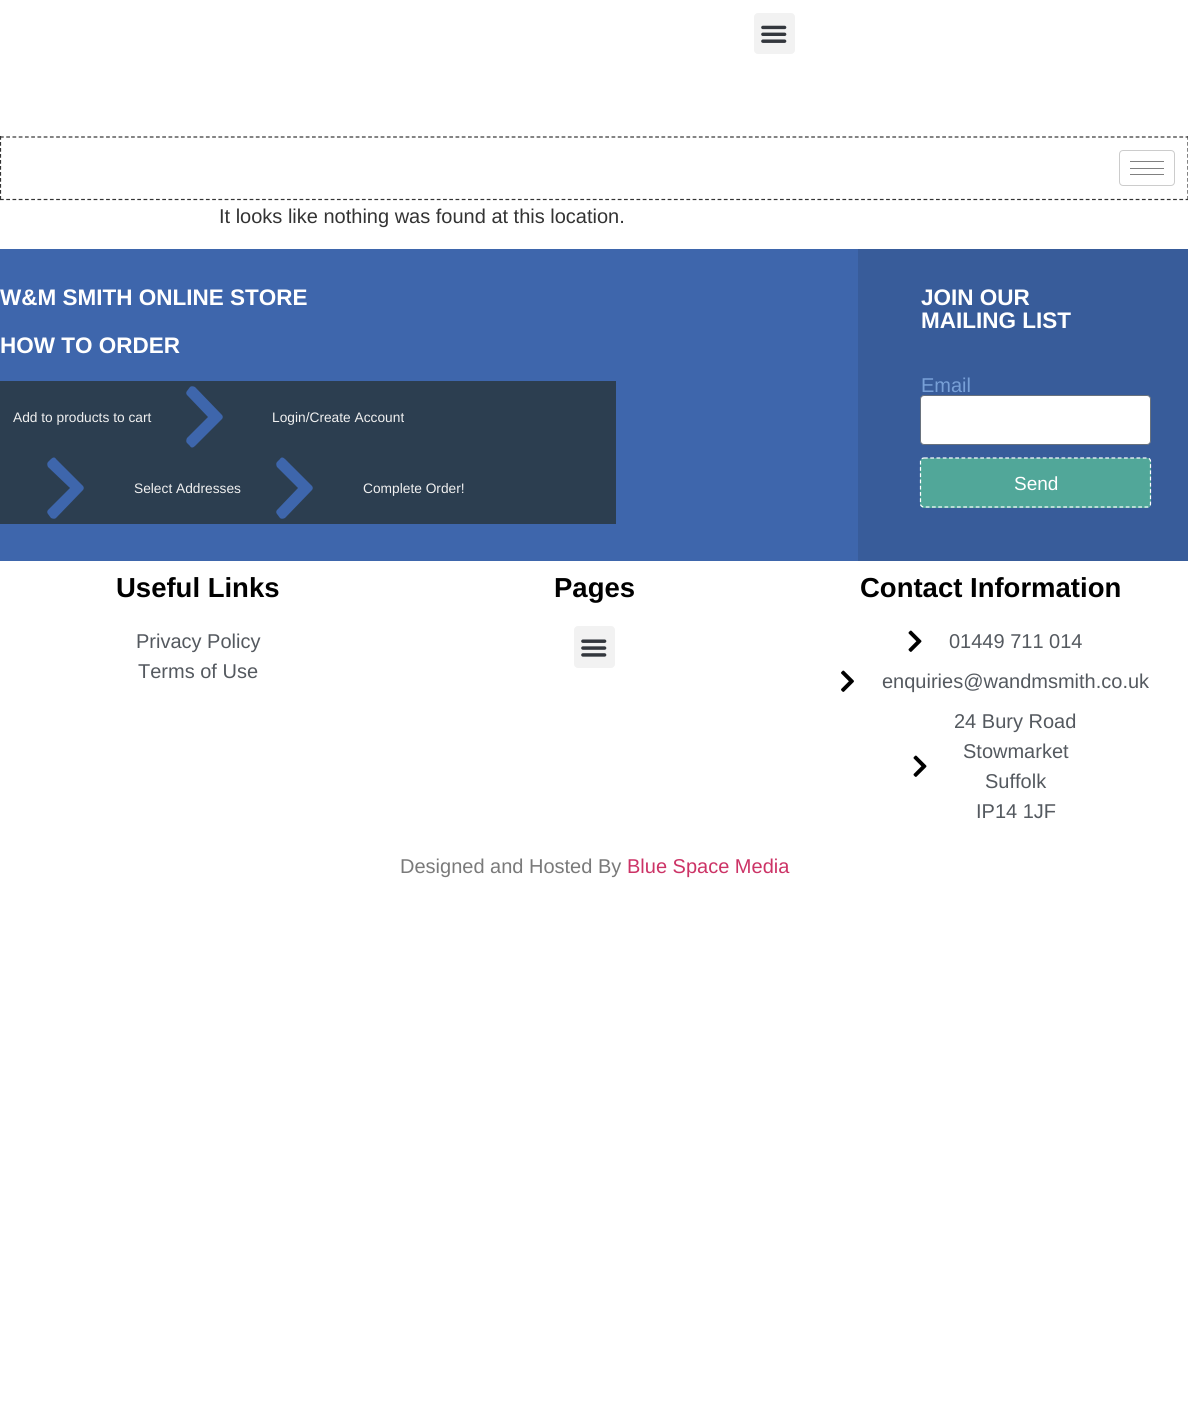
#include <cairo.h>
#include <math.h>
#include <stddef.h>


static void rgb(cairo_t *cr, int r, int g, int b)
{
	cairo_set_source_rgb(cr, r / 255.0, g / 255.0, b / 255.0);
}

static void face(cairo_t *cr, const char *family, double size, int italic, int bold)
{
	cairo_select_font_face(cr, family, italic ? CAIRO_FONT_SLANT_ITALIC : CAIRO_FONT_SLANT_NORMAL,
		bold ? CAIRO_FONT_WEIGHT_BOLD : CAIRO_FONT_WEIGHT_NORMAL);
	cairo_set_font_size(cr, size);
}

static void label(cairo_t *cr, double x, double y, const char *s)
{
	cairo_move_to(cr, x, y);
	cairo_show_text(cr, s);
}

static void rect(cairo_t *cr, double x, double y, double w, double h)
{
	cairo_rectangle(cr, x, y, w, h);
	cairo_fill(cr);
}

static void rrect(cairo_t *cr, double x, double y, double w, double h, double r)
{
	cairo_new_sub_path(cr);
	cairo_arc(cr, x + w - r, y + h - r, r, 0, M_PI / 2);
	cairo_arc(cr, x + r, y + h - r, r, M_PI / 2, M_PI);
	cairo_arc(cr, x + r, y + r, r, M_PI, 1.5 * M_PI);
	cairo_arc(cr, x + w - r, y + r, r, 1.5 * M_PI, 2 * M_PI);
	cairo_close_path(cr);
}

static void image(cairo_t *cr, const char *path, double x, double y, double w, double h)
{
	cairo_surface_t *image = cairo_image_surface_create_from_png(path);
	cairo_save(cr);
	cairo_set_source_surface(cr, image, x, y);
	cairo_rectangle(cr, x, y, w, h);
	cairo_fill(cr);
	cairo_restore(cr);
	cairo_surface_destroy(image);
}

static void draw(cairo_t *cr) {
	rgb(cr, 255, 255, 255);
	cairo_paint(cr);
	rgb(cr, 242, 242, 242);
	rrect(cr, 754, 13, 41, 41, 4);
	cairo_fill(cr);
	image(cr, "image0.png", 761, 25, 26, 18);
	cairo_new_path(cr);
	cairo_move_to(cr, 0, 137);
	cairo_line_to(cr, 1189, 137);
	rgb(cr, 51, 51, 51);
	cairo_set_line_width(cr, 1.2);
	cairo_set_dash(cr, (double[]){3.75, 2.49}, 2, 0);
	cairo_stroke(cr);
	cairo_new_path(cr);
	cairo_move_to(cr, 1188, 136);
	cairo_line_to(cr, 1188, 200);
	cairo_set_dash(cr, (double[]){3.75, 2.25}, 2, 0);
	cairo_stroke(cr);
	cairo_new_path(cr);
	cairo_move_to(cr, 0, 199.5);
	cairo_line_to(cr, 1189, 199.5);
	cairo_set_dash(cr, (double[]){3.75, 2.49}, 2, 0);
	cairo_stroke(cr);
	cairo_new_path(cr);
	cairo_move_to(cr, 0.5, 136);
	cairo_line_to(cr, 0.5, 200);
	cairo_set_dash(cr, (double[]){3.75, 2.25}, 2, 0);
	cairo_stroke(cr);
	rrect(cr, 1119.5, 150.5, 55, 35, 3.5);
	rgb(cr, 204, 204, 204);
	cairo_set_line_width(cr, 1);
	cairo_set_dash(cr, NULL, 0, 0);
	cairo_stroke(cr);
	rgb(cr, 128, 128, 128);
	rect(cr, 1130, 161, 34, 1);
	rect(cr, 1130, 168, 34, 1);
	rect(cr, 1130, 174, 34, 1);
	face(cr, "Liberation Sans", 20, 0, 0);
	rgb(cr, 51, 51, 51);
	label(cr, 219, 223, "It looks like nothing was found at this location.");
	rgb(cr, 62, 102, 172);
	rect(cr, 0, 249, 858, 312);
	face(cr, "Liberation Sans", 22.5, 0, 1);
	rgb(cr, 255, 255, 255);
	label(cr, 0, 305, "W&M SMITH ONLINE STORE");
	label(cr, 0, 353, "HOW TO ORDER");
	rgb(cr, 44, 62, 80);
	rect(cr, 0, 381, 616, 143);
	face(cr, "Liberation Sans", 13.75, 0, 0);
	rgb(cr, 240, 240, 240);
	label(cr, 13, 422, "Add to products to cart");
	rgb(cr, 62, 102, 172);
	cairo_new_path(cr);
	cairo_move_to(cr, 222, 419);
	cairo_line_to(cr, 195, 446);
	cairo_curve_to(cr, 193, 448, 191, 448, 190, 446);
	cairo_line_to(cr, 187, 443);
	cairo_curve_to(cr, 186, 442, 186, 440, 187, 438);
	cairo_line_to(cr, 208, 417);
	cairo_line_to(cr, 187, 395);
	cairo_curve_to(cr, 186, 394, 186, 392, 187, 391);
	cairo_line_to(cr, 190, 387);
	cairo_curve_to(cr, 191, 386, 193, 386, 195, 387);
	cairo_line_to(cr, 222, 415);
	cairo_curve_to(cr, 223, 416, 223, 418, 222, 419);
	cairo_close_path(cr);
	cairo_fill(cr);
	rgb(cr, 240, 240, 240);
	label(cr, 272, 422, "Login/Create Account");
	rgb(cr, 62, 102, 172);
	cairo_new_path(cr);
	cairo_move_to(cr, 83, 490);
	cairo_line_to(cr, 56, 518);
	cairo_curve_to(cr, 55, 519, 53, 519, 51, 518);
	cairo_line_to(cr, 48, 514);
	cairo_curve_to(cr, 47, 513, 47, 511, 48, 510);
	cairo_line_to(cr, 70, 488);
	cairo_line_to(cr, 48, 467);
	cairo_curve_to(cr, 47, 465, 47, 463, 48, 462);
	cairo_line_to(cr, 51, 459);
	cairo_curve_to(cr, 53, 457, 55, 457, 56, 459);
	cairo_line_to(cr, 83, 486);
	cairo_curve_to(cr, 84, 487, 84, 489, 83, 490);
	cairo_close_path(cr);
	cairo_fill(cr);
	rgb(cr, 240, 240, 240);
	label(cr, 134, 493, "Select Addresses");
	rgb(cr, 62, 102, 172);
	cairo_new_path(cr);
	cairo_move_to(cr, 312, 490);
	cairo_line_to(cr, 285, 518);
	cairo_curve_to(cr, 283, 519, 281, 519, 280, 518);
	cairo_line_to(cr, 277, 514);
	cairo_curve_to(cr, 276, 513, 276, 511, 277, 510);
	cairo_line_to(cr, 298, 488);
	cairo_line_to(cr, 277, 467);
	cairo_curve_to(cr, 276, 465, 276, 463, 277, 462);
	cairo_line_to(cr, 280, 459);
	cairo_curve_to(cr, 281, 457, 283, 457, 285, 459);
	cairo_line_to(cr, 312, 486);
	cairo_curve_to(cr, 313, 487, 313, 489, 312, 490);
	cairo_close_path(cr);
	cairo_fill(cr);
	rgb(cr, 240, 240, 240);
	label(cr, 363, 493, "Complete Order!");
	rgb(cr, 56, 92, 154);
	rect(cr, 858, 249, 330, 312);
	face(cr, "Liberation Sans", 22.5, 0, 1);
	rgb(cr, 255, 255, 255);
	label(cr, 921, 305, "JOIN OUR");
	label(cr, 921, 328, "MAILING LIST");
	face(cr, "Liberation Sans", 20, 0, 0);
	rgb(cr, 120, 160, 215);
	label(cr, 921, 392, "Email");
	rgb(cr, 255, 255, 255);
	rrect(cr, 920.5, 395.5, 230, 49, 3.5);
	cairo_fill_preserve(cr);
	rgb(cr, 105, 114, 125);
	cairo_stroke(cr);
	rgb(cr, 81, 167, 153);
	rrect(cr, 920, 458, 231, 50, 4);
	cairo_fill(cr);
	cairo_new_path(cr);
	cairo_move_to(cr, 924, 458);
	cairo_line_to(cr, 1147.5, 458);
	cairo_curve_to(cr, 1149, 458, 1150.5, 459.5, 1150.5, 461);
	cairo_line_to(cr, 1150.5, 504);
	cairo_curve_to(cr, 1150.5, 505.5, 1149, 507, 1147.5, 507);
	cairo_line_to(cr, 924, 507);
	cairo_curve_to(cr, 922, 507, 920.5, 505.5, 920.5, 504);
	cairo_line_to(cr, 920.5, 461);
	cairo_curve_to(cr, 920.5, 459.5, 922, 458, 924, 458);
	cairo_close_path(cr);
	rgb(cr, 255, 255, 255);
	cairo_set_line_width(cr, 1.2);
	cairo_set_dash(cr, (double[]){3.75, 2.5}, 2, 0);
	cairo_stroke(cr);
	face(cr, "Liberation Sans", 19, 0, 0);
	label(cr, 1014, 490, "Send");
	face(cr, "Liberation Sans", 27.5, 0, 1);
	rgb(cr, 0, 0, 0);
	label(cr, 116, 597, "Useful Links");
	face(cr, "Liberation Sans", 20, 0, 0);
	rgb(cr, 84, 89, 95);
	label(cr, 136, 648, "Privacy Policy");
	label(cr, 138, 678, "Terms of Use");
	face(cr, "Liberation Sans", 27.5, 0, 1);
	rgb(cr, 0, 0, 0);
	label(cr, 554, 597, "Pages");
	rgb(cr, 242, 242, 242);
	rrect(cr, 574, 626, 41, 42, 4);
	cairo_fill(cr);
	image(cr, "image1.png", 581, 639, 26, 18);
	rgb(cr, 0, 0, 0);
	label(cr, 860, 597, "Contact Information");
	image(cr, "image2.png", 908, 630, 14, 22);
	face(cr, "Liberation Sans", 20, 0, 0);
	rgb(cr, 84, 89, 95);
	label(cr, 949, 648, "01449 711 014");
	image(cr, "image3.png", 841, 670, 13, 22);
	label(cr, 882, 688, "enquiries@wandmsmith.co.uk");
	image(cr, "image2.png", 913, 755, 14, 22);
	label(cr, 954, 728, "24 Bury Road");
	label(cr, 963, 758, "Stowmarket");
	label(cr, 985, 788, "Suffolk");
	label(cr, 976, 818, "IP14 1JF");
	rgb(cr, 122, 122, 122);
	label(cr, 400, 873, "Designed and Hosted By");
	rgb(cr, 204, 51, 102);
	label(cr, 627, 873, "Blue Space Media");
}

int main(void) {
	cairo_surface_t *surface = cairo_image_surface_create(CAIRO_FORMAT_RGB24, 1188, 1405);
	cairo_t *cr = cairo_create(surface);
	cairo_font_options_t *options = cairo_font_options_create();
	cairo_font_options_set_hint_metrics(options, CAIRO_HINT_METRICS_OFF);
	cairo_font_options_set_hint_style(options, CAIRO_HINT_STYLE_NONE);
	cairo_set_font_options(cr, options);
	cairo_set_miter_limit(cr, 4);
	draw(cr);
	cairo_surface_write_to_png(surface, "render.png");
	cairo_font_options_destroy(options);
	cairo_destroy(cr);
	cairo_surface_destroy(surface);
	return 0;
}
